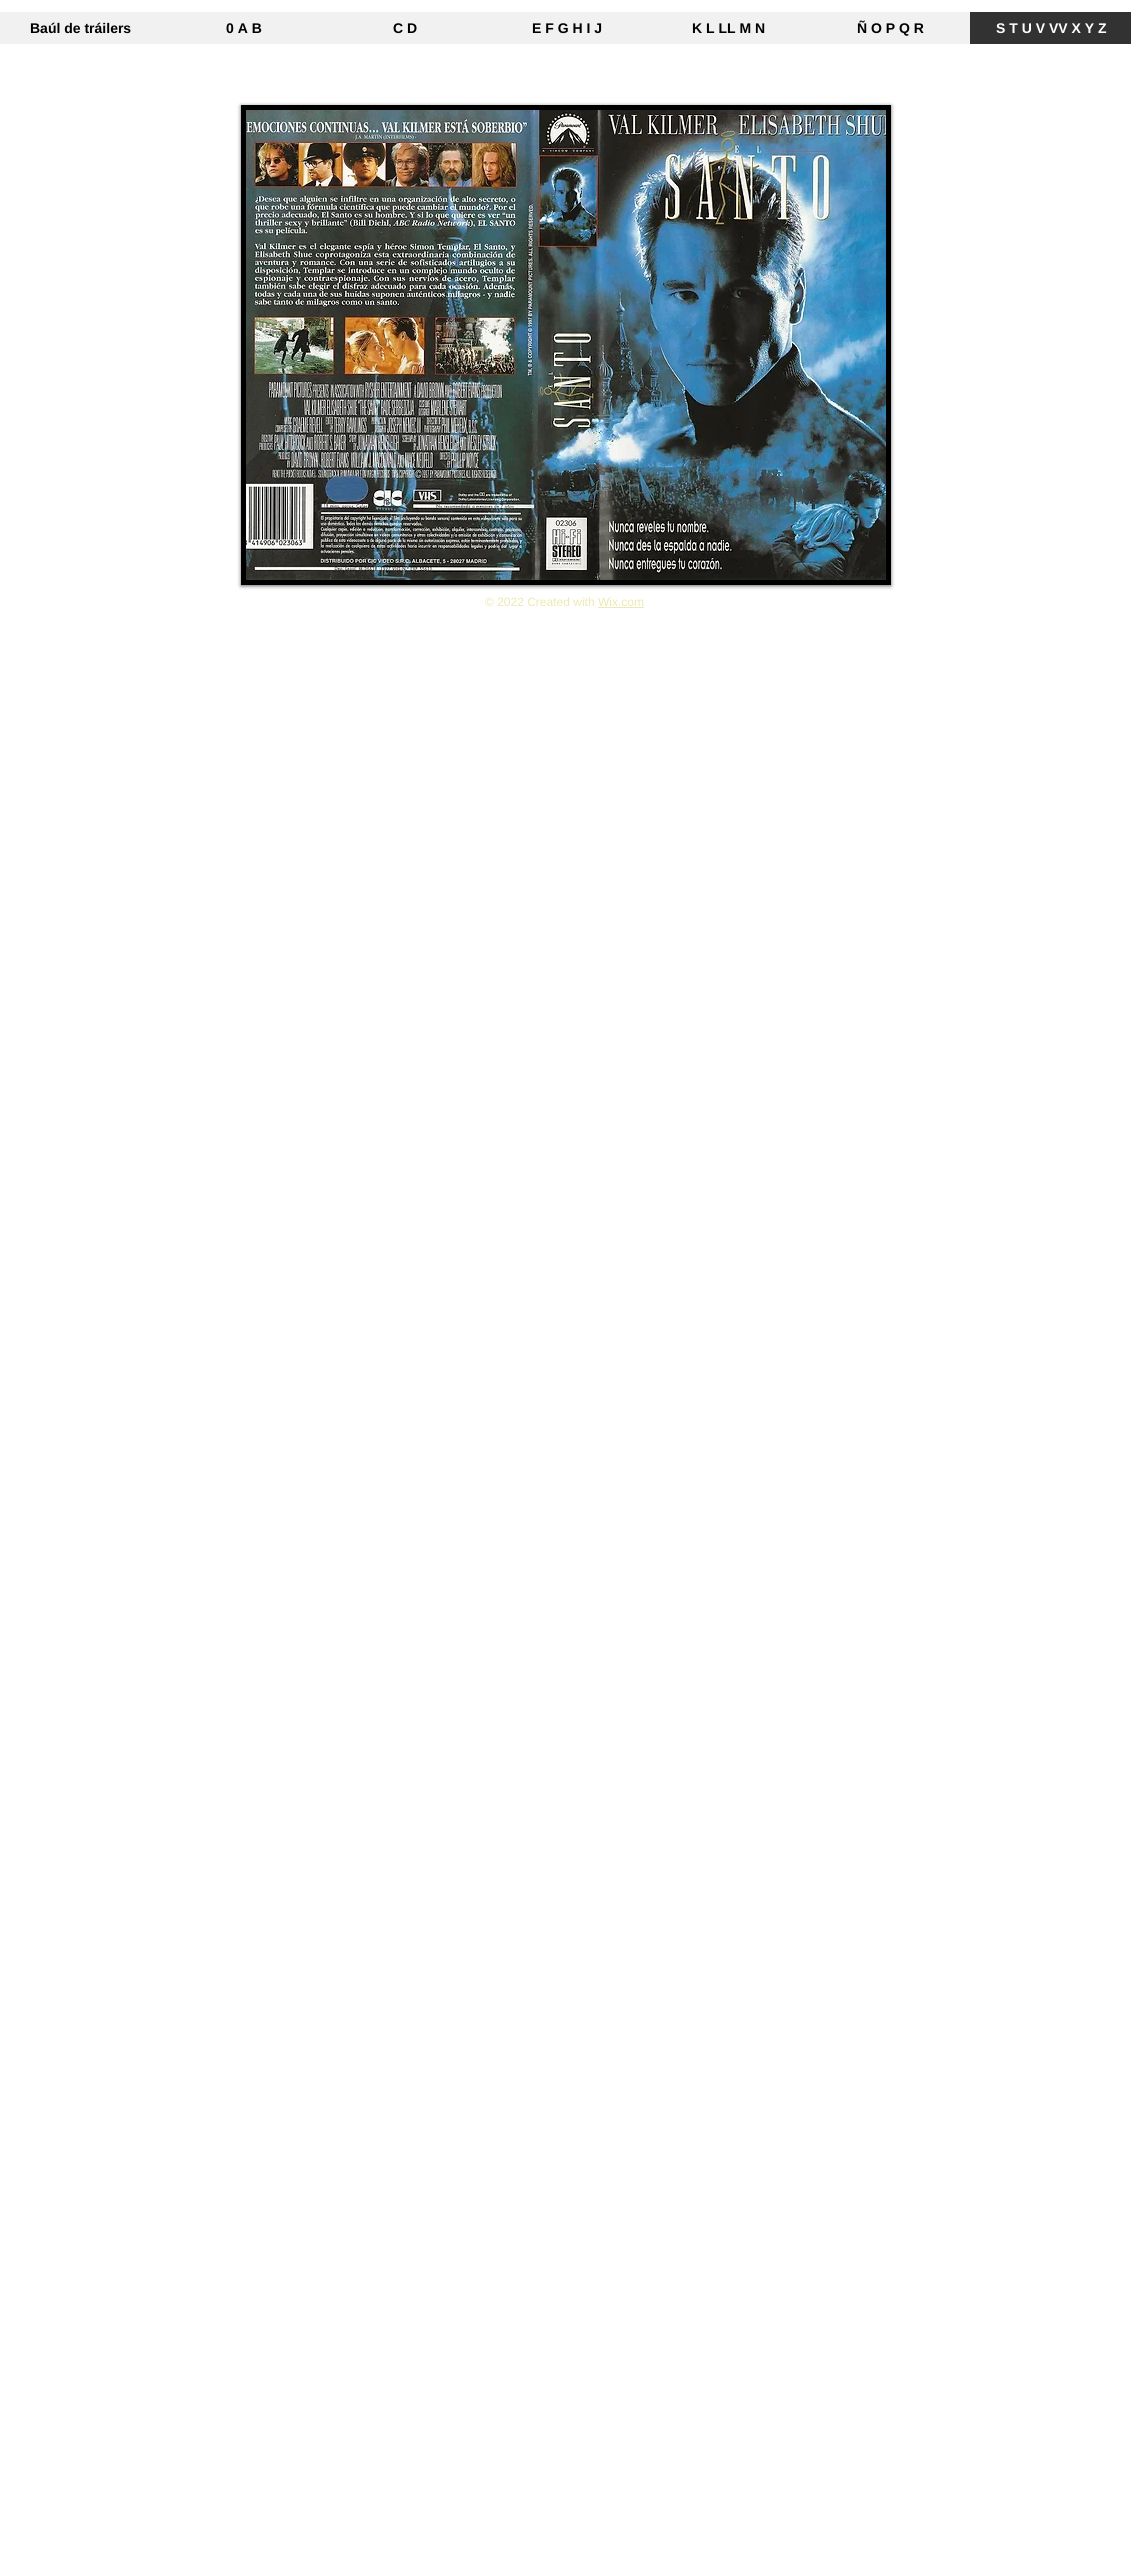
#include <cairo.h>
#include <math.h>
#include <stddef.h>


static void rgb(cairo_t *cr, int r, int g, int b)
{
	cairo_set_source_rgb(cr, r / 255.0, g / 255.0, b / 255.0);
}

static void face(cairo_t *cr, const char *family, double size, int italic, int bold)
{
	cairo_select_font_face(cr, family, italic ? CAIRO_FONT_SLANT_ITALIC : CAIRO_FONT_SLANT_NORMAL,
		bold ? CAIRO_FONT_WEIGHT_BOLD : CAIRO_FONT_WEIGHT_NORMAL);
	cairo_set_font_size(cr, size);
}

static void label(cairo_t *cr, double x, double y, const char *s)
{
	cairo_move_to(cr, x, y);
	cairo_show_text(cr, s);
}

static void rect(cairo_t *cr, double x, double y, double w, double h)
{
	cairo_rectangle(cr, x, y, w, h);
	cairo_fill(cr);
}

static void rrect(cairo_t *cr, double x, double y, double w, double h, double r)
{
	cairo_new_sub_path(cr);
	cairo_arc(cr, x + w - r, y + h - r, r, 0, M_PI / 2);
	cairo_arc(cr, x + r, y + h - r, r, M_PI / 2, M_PI);
	cairo_arc(cr, x + r, y + r, r, M_PI, 1.5 * M_PI);
	cairo_arc(cr, x + w - r, y + r, r, 1.5 * M_PI, 2 * M_PI);
	cairo_close_path(cr);
}

static void soft_shadow(cairo_t *cr, double x, double y, double w, double h, double r, double blur, double alpha)
{
	cairo_push_group_with_content(cr, CAIRO_CONTENT_ALPHA);
	cairo_set_operator(cr, CAIRO_OPERATOR_SOURCE);
	for (int i = 15; i >= -15 && fmin(w, h) + blur * i / 3 > 0; i -= 2) {
		double e = blur * i / 6;
		cairo_set_source_rgba(cr, 0, 0, 0, alpha * erfc((i - 1) / 8.5) / 2);
		rrect(cr, x - e, y - e, w + 2 * e, h + 2 * e, fmax(0, fmin(r + e + blur * .6, fmin(w, h) / 2 + e)));
		cairo_fill(cr);
	}
	cairo_pattern_t *soft = cairo_pop_group(cr);
	cairo_mask(cr, soft);
	cairo_pattern_destroy(soft);
}

static void image(cairo_t *cr, const char *path, double x, double y, double w, double h)
{
	cairo_surface_t *image = cairo_image_surface_create_from_png(path);
	cairo_save(cr);
	cairo_set_source_surface(cr, image, x, y);
	cairo_rectangle(cr, x, y, w, h);
	cairo_fill(cr);
	cairo_restore(cr);
	cairo_surface_destroy(image);
}

static void draw(cairo_t *cr) {
	rgb(cr, 255, 255, 255);
	cairo_paint(cr);
	rgb(cr, 241, 241, 241);
	rect(cr, 0, 12, 970, 32);
	face(cr, "Liberation Sans", 14, 0, 1);
	rgb(cr, 0, 0, 0);
	label(cr, 30, 33, "Baúl de tráilers");
	label(cr, 226, 33, "0 A B");
	label(cr, 393, 33, "C D");
	label(cr, 532, 33, "E F G H I J");
	label(cr, 692, 33, "K L LL M N");
	label(cr, 857, 33, "Ñ O P Q R");
	rgb(cr, 50, 50, 50);
	rect(cr, 970, 12, 161, 32);
	rgb(cr, 255, 255, 255);
	label(cr, 996, 33, "S T U V VV X Y Z");
	rgb(cr, 0, 0, 0);
	soft_shadow(cr, 241, 106, 650, 480, 0, 2, 0.6);
	cairo_rectangle(cr, 243.5, 107.5, 645, 475);
	rgb(cr, 0, 0, 0);
	cairo_set_line_width(cr, 5);
	cairo_stroke(cr);
	image(cr, "image0.png", 246, 110, 640, 470);
	face(cr, "Liberation Sans", 12, 0, 0);
	rgb(cr, 237, 233, 178);
	label(cr, 485, 606, "© 2022 Created with Wix.com");
	rect(cr, 598, 607, 46, 1);
}

int main(void) {
	cairo_surface_t *surface = cairo_image_surface_create(CAIRO_FORMAT_RGB24, 1131, 2560);
	cairo_t *cr = cairo_create(surface);
	cairo_font_options_t *options = cairo_font_options_create();
	cairo_font_options_set_hint_metrics(options, CAIRO_HINT_METRICS_OFF);
	cairo_font_options_set_hint_style(options, CAIRO_HINT_STYLE_NONE);
	cairo_set_font_options(cr, options);
	cairo_set_miter_limit(cr, 4);
	draw(cr);
	cairo_surface_write_to_png(surface, "render.png");
	cairo_font_options_destroy(options);
	cairo_destroy(cr);
	cairo_surface_destroy(surface);
	return 0;
}
